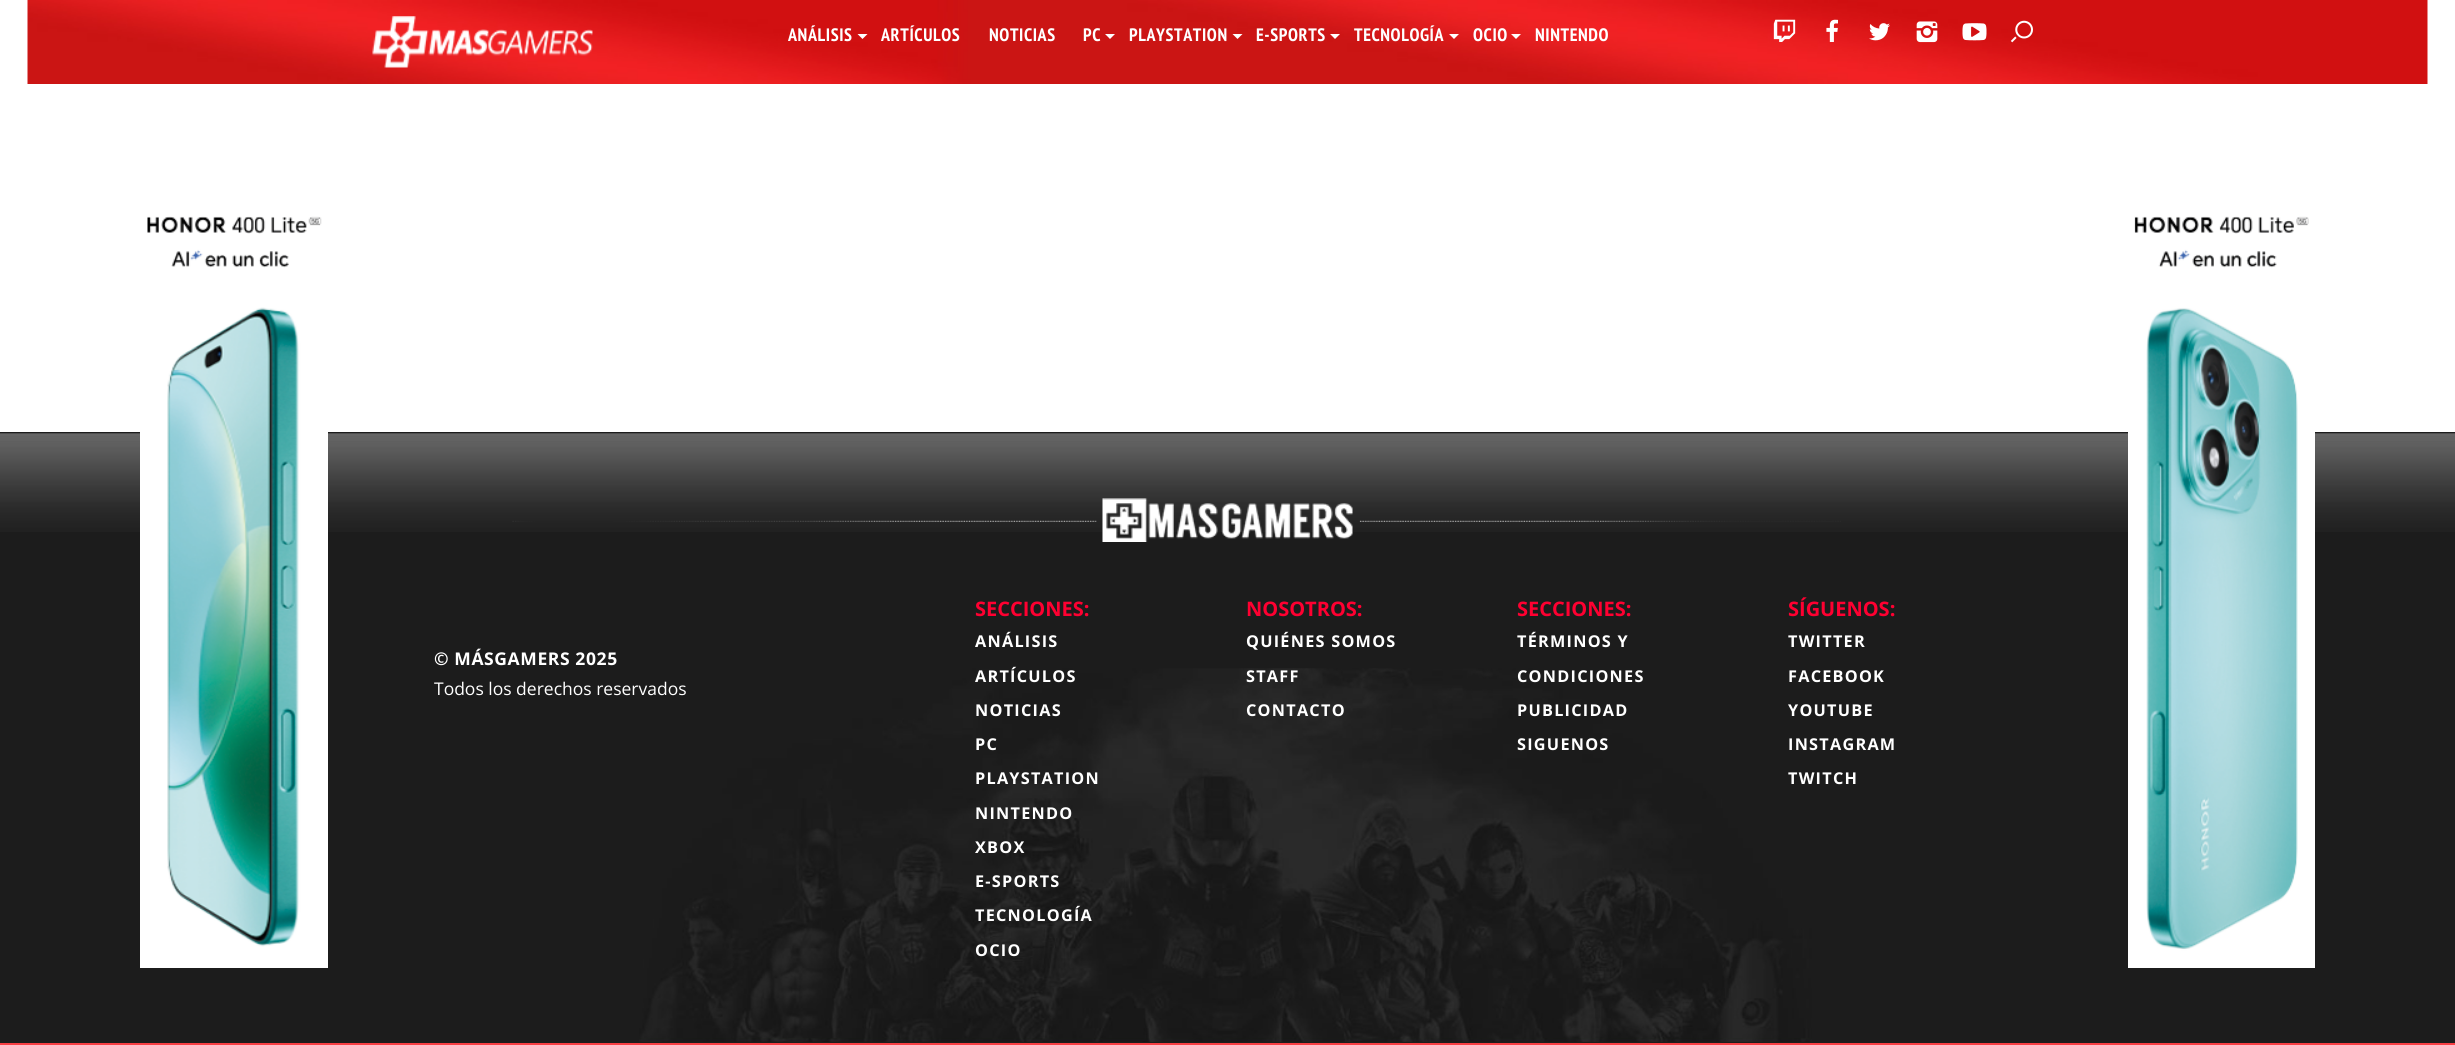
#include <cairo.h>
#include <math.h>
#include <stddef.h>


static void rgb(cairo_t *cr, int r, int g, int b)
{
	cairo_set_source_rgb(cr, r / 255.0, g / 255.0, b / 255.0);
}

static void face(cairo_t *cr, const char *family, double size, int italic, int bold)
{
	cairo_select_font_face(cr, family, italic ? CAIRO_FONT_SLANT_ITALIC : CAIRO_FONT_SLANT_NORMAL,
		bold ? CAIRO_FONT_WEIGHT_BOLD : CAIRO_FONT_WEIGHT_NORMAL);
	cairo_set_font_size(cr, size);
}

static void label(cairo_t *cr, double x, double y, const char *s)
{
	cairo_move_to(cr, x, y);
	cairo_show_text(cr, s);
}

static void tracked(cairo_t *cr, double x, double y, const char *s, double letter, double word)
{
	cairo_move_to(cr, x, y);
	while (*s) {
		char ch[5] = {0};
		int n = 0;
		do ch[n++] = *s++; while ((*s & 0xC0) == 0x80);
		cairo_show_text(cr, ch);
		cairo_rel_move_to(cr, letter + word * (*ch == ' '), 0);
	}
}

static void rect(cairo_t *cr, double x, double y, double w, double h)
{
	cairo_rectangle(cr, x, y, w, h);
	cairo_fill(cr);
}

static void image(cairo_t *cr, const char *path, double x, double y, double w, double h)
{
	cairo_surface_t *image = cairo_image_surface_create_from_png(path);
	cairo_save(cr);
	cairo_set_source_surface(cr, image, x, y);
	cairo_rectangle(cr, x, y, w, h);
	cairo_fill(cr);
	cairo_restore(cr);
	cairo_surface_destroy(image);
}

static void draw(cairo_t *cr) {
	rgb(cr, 255, 255, 255);
	cairo_paint(cr);
	image(cr, "image0.png", 27, 0, 2401, 84);
	image(cr, "image1.png", 372, 16, 221, 52);
	face(cr, "PT Sans Narrow", 18, 0, 1);
	rgb(cr, 255, 255, 255);
	tracked(cr, 788, 41, "ANÁLISIS", 0.6, 0);
	cairo_new_path(cr);
	cairo_move_to(cr, 857.5, 34);
	cairo_line_to(cr, 867.5, 34);
	cairo_line_to(cr, 862.5, 39);
	cairo_close_path(cr);
	cairo_fill(cr);
	tracked(cr, 881, 41, "ARTÍCULOS", 0.6, 0);
	tracked(cr, 989, 41, "NOTICIAS", 0.6, 0);
	tracked(cr, 1083, 41, "PC", 0.6, 0);
	cairo_new_path(cr);
	cairo_move_to(cr, 1105, 34);
	cairo_line_to(cr, 1115, 34);
	cairo_line_to(cr, 1110, 39);
	cairo_close_path(cr);
	cairo_fill(cr);
	tracked(cr, 1129, 41, "PLAYSTATION", 0.6, 0);
	cairo_new_path(cr);
	cairo_move_to(cr, 1232.5, 34);
	cairo_line_to(cr, 1242.5, 34);
	cairo_line_to(cr, 1237.5, 39);
	cairo_close_path(cr);
	cairo_fill(cr);
	tracked(cr, 1256, 41, "E-SPORTS", 0.6, 0);
	cairo_new_path(cr);
	cairo_move_to(cr, 1330, 34);
	cairo_line_to(cr, 1340, 34);
	cairo_line_to(cr, 1335, 39);
	cairo_close_path(cr);
	cairo_fill(cr);
	tracked(cr, 1354, 41, "TECNOLOGÍA", 0.6, 0);
	cairo_new_path(cr);
	cairo_move_to(cr, 1449, 34);
	cairo_line_to(cr, 1459, 34);
	cairo_line_to(cr, 1454, 39);
	cairo_close_path(cr);
	cairo_fill(cr);
	tracked(cr, 1473, 41, "OCIO", 0.6, 0);
	cairo_new_path(cr);
	cairo_move_to(cr, 1511, 34);
	cairo_line_to(cr, 1521, 34);
	cairo_line_to(cr, 1516, 39);
	cairo_close_path(cr);
	cairo_fill(cr);
	tracked(cr, 1535, 41, "NINTENDO", 0.6, 0);
	image(cr, "image2.png", 1773, 19, 23, 23);
	image(cr, "image3.png", 1826, 19, 12, 23);
	image(cr, "image4.png", 1869, 23, 21, 18);
	image(cr, "image5.png", 1916, 21, 22, 22);
	image(cr, "image6.png", 1962, 23, 25, 18);
	image(cr, "image7.png", 2010, 20, 23, 23);
	rgb(cr, 28, 28, 28);
	rect(cr, 0, 532, 2455, 511);
	image(cr, "image11.png", 0, 432, 2455, 100);
	image(cr, "image8.png", 140, 216, 188, 752);
	image(cr, "image9.png", 2128, 216, 187, 752);
	image(cr, "image10.png", 639, 668, 1173, 374);
	rgb(cr, 248, 63, 68);
	rect(cr, 0, 1043, 2455, 2);
	image(cr, "image12.png", 512, 520, 1329, 2);
	image(cr, "image13.png", 1102, 498, 251, 44);
	face(cr, "Open Sans", 17.5, 0, 1);
	rgb(cr, 255, 255, 255);
	tracked(cr, 434, 665, "© MÁSGAMERS 2025", 0.6, 0);
	face(cr, "Open Sans", 17.5, 0, 0);
	label(cr, 434, 695, "Todos los derechos reservados");
	face(cr, "Open Sans", 20, 0, 1);
	rgb(cr, 255, 0, 49);
	label(cr, 975, 616, "SECCIONES:");
	face(cr, "Open Sans", 16.25, 0, 1);
	rgb(cr, 255, 255, 255);
	tracked(cr, 975, 647, "ANÁLISIS", 1.25, 0);
	tracked(cr, 975, 682, "ARTÍCULOS", 1.25, 0);
	tracked(cr, 975, 716, "NOTICIAS", 1.25, 0);
	tracked(cr, 975, 750, "PC", 1.25, 0);
	tracked(cr, 975, 784, "PLAYSTATION", 1.25, 0);
	tracked(cr, 975, 819, "NINTENDO", 1.25, 0);
	tracked(cr, 975, 853, "XBOX", 1.25, 0);
	tracked(cr, 975, 887, "E-SPORTS", 1.25, 0);
	tracked(cr, 975, 921, "TECNOLOGÍA", 1.25, 0);
	tracked(cr, 975, 956, "OCIO", 1.25, 0);
	face(cr, "Open Sans", 20, 0, 1);
	rgb(cr, 255, 0, 49);
	label(cr, 1246, 616, "NOSOTROS:");
	face(cr, "Open Sans", 16.25, 0, 1);
	rgb(cr, 255, 255, 255);
	tracked(cr, 1246, 647, "QUIÉNES SOMOS", 1.25, 0);
	tracked(cr, 1246, 682, "STAFF", 1.25, 0);
	tracked(cr, 1246, 716, "CONTACTO", 1.25, 0);
	face(cr, "Open Sans", 20, 0, 1);
	rgb(cr, 255, 0, 49);
	label(cr, 1517, 616, "SECCIONES:");
	face(cr, "Open Sans", 16.25, 0, 1);
	rgb(cr, 255, 255, 255);
	tracked(cr, 1517, 647, "TÉRMINOS Y", 1.25, 0);
	tracked(cr, 1517, 682, "CONDICIONES", 1.25, 0);
	tracked(cr, 1517, 716, "PUBLICIDAD", 1.25, 0);
	tracked(cr, 1517, 750, "SIGUENOS", 1.25, 0);
	face(cr, "Open Sans", 20, 0, 1);
	rgb(cr, 255, 0, 49);
	label(cr, 1788, 616, "SÍGUENOS:");
	face(cr, "Open Sans", 16.25, 0, 1);
	rgb(cr, 255, 255, 255);
	tracked(cr, 1788, 647, "TWITTER", 1.25, 0);
	tracked(cr, 1788, 682, "FACEBOOK", 1.25, 0);
	tracked(cr, 1788, 716, "YOUTUBE", 1.25, 0);
	tracked(cr, 1788, 750, "INSTAGRAM", 1.25, 0);
	tracked(cr, 1788, 784, "TWITCH", 1.25, 0);
}

int main(void) {
	cairo_surface_t *surface = cairo_image_surface_create(CAIRO_FORMAT_RGB24, 2455, 1045);
	cairo_t *cr = cairo_create(surface);
	cairo_font_options_t *options = cairo_font_options_create();
	cairo_font_options_set_hint_metrics(options, CAIRO_HINT_METRICS_OFF);
	cairo_font_options_set_hint_style(options, CAIRO_HINT_STYLE_NONE);
	cairo_set_font_options(cr, options);
	cairo_set_miter_limit(cr, 4);
	draw(cr);
	cairo_surface_write_to_png(surface, "render.png");
	cairo_font_options_destroy(options);
	cairo_destroy(cr);
	cairo_surface_destroy(surface);
	return 0;
}
